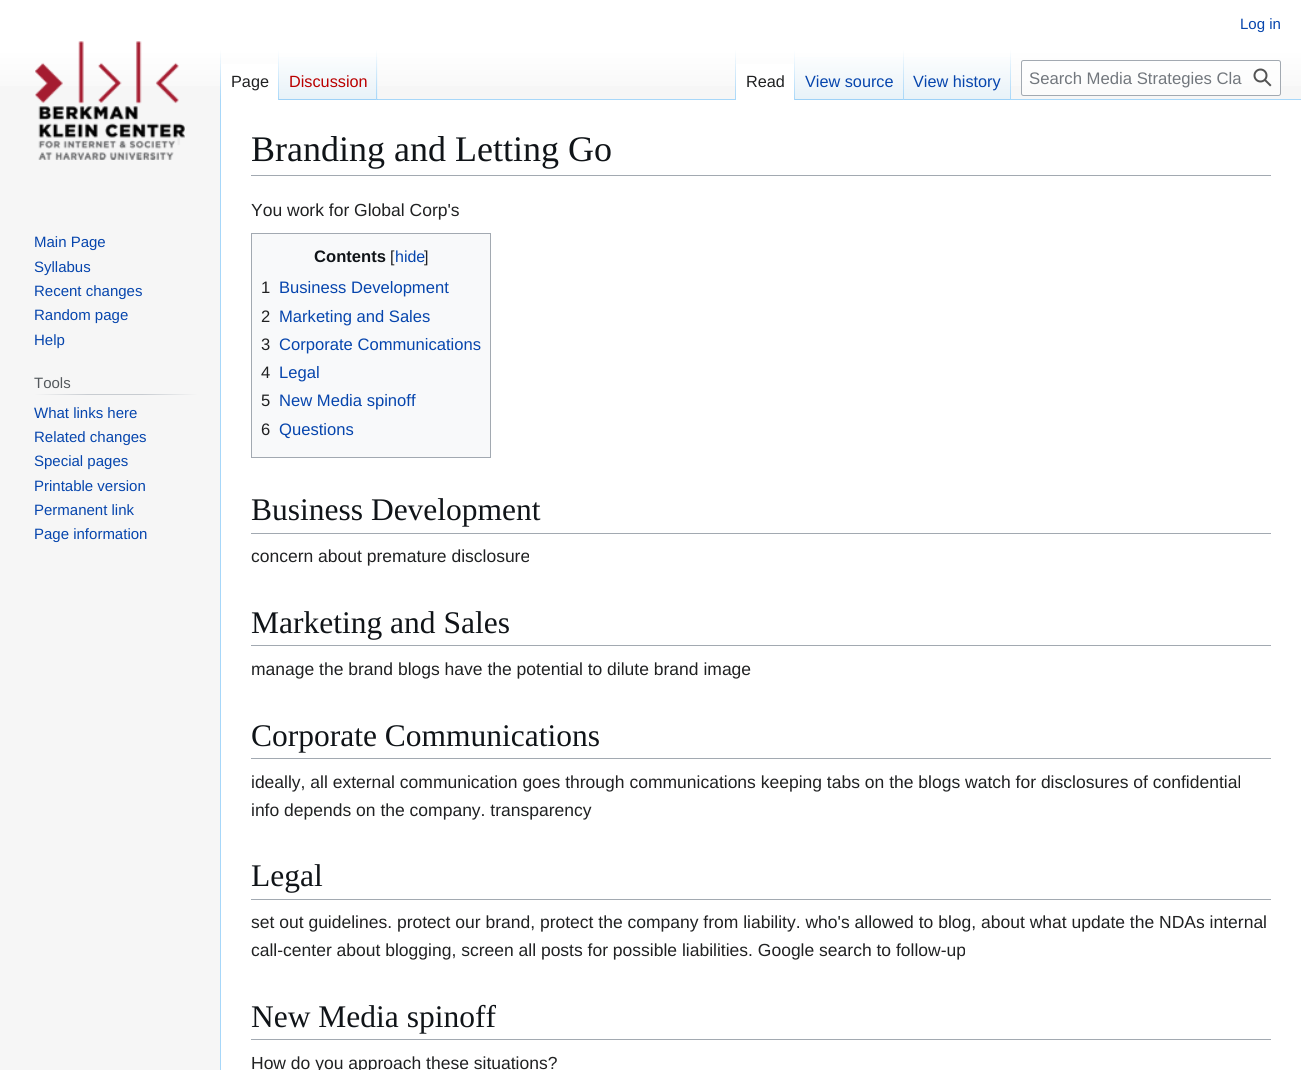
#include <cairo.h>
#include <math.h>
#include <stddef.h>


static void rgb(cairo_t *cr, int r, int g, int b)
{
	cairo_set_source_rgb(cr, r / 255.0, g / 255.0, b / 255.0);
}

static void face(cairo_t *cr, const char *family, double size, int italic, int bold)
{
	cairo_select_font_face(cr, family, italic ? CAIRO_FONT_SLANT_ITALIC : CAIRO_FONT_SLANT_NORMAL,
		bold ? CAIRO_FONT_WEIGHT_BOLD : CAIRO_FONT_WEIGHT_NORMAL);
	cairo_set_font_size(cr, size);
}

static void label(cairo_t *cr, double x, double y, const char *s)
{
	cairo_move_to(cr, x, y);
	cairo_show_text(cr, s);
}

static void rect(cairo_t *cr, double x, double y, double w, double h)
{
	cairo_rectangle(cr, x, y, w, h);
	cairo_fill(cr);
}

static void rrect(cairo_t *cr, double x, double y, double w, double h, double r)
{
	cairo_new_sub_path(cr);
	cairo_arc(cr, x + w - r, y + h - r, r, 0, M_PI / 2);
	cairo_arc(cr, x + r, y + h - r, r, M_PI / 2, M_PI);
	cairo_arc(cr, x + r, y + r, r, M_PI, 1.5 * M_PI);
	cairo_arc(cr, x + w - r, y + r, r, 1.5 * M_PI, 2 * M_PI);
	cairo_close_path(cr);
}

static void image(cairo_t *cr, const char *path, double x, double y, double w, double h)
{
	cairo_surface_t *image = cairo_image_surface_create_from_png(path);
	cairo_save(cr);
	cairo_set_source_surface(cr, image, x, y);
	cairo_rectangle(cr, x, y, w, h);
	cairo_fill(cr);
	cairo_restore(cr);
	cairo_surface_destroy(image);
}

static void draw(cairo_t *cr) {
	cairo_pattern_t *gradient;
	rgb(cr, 246, 246, 246);
	cairo_paint(cr);
	gradient = cairo_pattern_create_linear(651, 0, 651, 100);
	cairo_pattern_add_color_stop_rgba(gradient, 0.5, 1, 1, 1, 1);
	cairo_pattern_add_color_stop_rgba(gradient, 1, 0.965, 0.965, 0.965, 1);
	cairo_set_source(cr, gradient);
	cairo_pattern_destroy(gradient);
	rect(cr, 0, 0, 1301, 86);
	face(cr, "Liberation Sans", 15, 0, 0);
	rgb(cr, 6, 69, 173);
	label(cr, 1240, 29, "Log in");
	rgb(cr, 167, 215, 249);
	rect(cr, 220, 99, 1, 971);
	gradient = cairo_pattern_create_linear(221, 50, 221, 100);
	cairo_pattern_add_color_stop_rgba(gradient, 0, 0.655, 0.843, 0.976, 0);
	cairo_pattern_add_color_stop_rgba(gradient, 1, 0.655, 0.843, 0.976, 1);
	cairo_set_source(cr, gradient);
	cairo_pattern_destroy(gradient);
	rect(cr, 220, 50, 1, 50);
	rgb(cr, 255, 255, 255);
	rect(cr, 221, 64, 57, 36);
	gradient = cairo_pattern_create_linear(278, 50, 278, 100);
	cairo_pattern_add_color_stop_rgba(gradient, 0, 1, 1, 1, 1);
	cairo_pattern_add_color_stop_rgba(gradient, 1, 0.655, 0.843, 0.976, 1);
	cairo_set_source(cr, gradient);
	cairo_pattern_destroy(gradient);
	rect(cr, 278, 50, 1, 50);
	face(cr, "Liberation Sans", 16.25, 0, 0);
	rgb(cr, 32, 33, 34);
	label(cr, 231, 87, "Page");
	gradient = cairo_pattern_create_linear(328, 100, 328, 50);
	cairo_pattern_add_color_stop_rgba(gradient, 0, 0.467, 0.757, 0.965, 1);
	cairo_pattern_add_color_stop_rgba(gradient, 0.03, 0.91, 0.949, 0.973, 1);
	cairo_pattern_add_color_stop_rgba(gradient, 1, 1, 1, 1, 1);
	cairo_set_source(cr, gradient);
	cairo_pattern_destroy(gradient);
	rect(cr, 279, 57, 99, 43);
	gradient = cairo_pattern_create_linear(377, 50, 377, 100);
	cairo_pattern_add_color_stop_rgba(gradient, 0, 0.655, 0.843, 0.976, 0);
	cairo_pattern_add_color_stop_rgba(gradient, 1, 0.655, 0.843, 0.976, 1);
	cairo_set_source(cr, gradient);
	cairo_pattern_destroy(gradient);
	rect(cr, 376, 50, 1, 50);
	rgb(cr, 186, 0, 0);
	label(cr, 289, 87, "Discussion");
	rgb(cr, 167, 215, 249);
	rect(cr, 378, 99, 923, 1);
	gradient = cairo_pattern_create_linear(736, 50, 736, 100);
	cairo_pattern_add_color_stop_rgba(gradient, 0, 0.655, 0.843, 0.976, 0);
	cairo_pattern_add_color_stop_rgba(gradient, 1, 0.655, 0.843, 0.976, 1);
	cairo_set_source(cr, gradient);
	cairo_pattern_destroy(gradient);
	rect(cr, 735, 50, 1, 50);
	rgb(cr, 255, 255, 255);
	rect(cr, 736, 64, 58, 36);
	gradient = cairo_pattern_create_linear(794, 50, 794, 100);
	cairo_pattern_add_color_stop_rgba(gradient, 0, 1, 1, 1, 1);
	cairo_pattern_add_color_stop_rgba(gradient, 1, 0.655, 0.843, 0.976, 1);
	cairo_set_source(cr, gradient);
	cairo_pattern_destroy(gradient);
	rect(cr, 794, 50, 1, 50);
	rgb(cr, 32, 33, 34);
	label(cr, 746, 87, "Read");
	gradient = cairo_pattern_create_linear(849, 100, 849, 50);
	cairo_pattern_add_color_stop_rgba(gradient, 0, 0.467, 0.757, 0.965, 1);
	cairo_pattern_add_color_stop_rgba(gradient, 0.03, 0.91, 0.949, 0.973, 1);
	cairo_pattern_add_color_stop_rgba(gradient, 1, 1, 1, 1, 1);
	cairo_set_source(cr, gradient);
	cairo_pattern_destroy(gradient);
	rect(cr, 795, 57, 109, 43);
	gradient = cairo_pattern_create_linear(903, 50, 903, 100);
	cairo_pattern_add_color_stop_rgba(gradient, 0, 0.655, 0.843, 0.976, 0);
	cairo_pattern_add_color_stop_rgba(gradient, 1, 0.655, 0.843, 0.976, 1);
	cairo_set_source(cr, gradient);
	cairo_pattern_destroy(gradient);
	rect(cr, 903, 50, 1, 50);
	rgb(cr, 6, 69, 173);
	label(cr, 805, 87, "View source");
	gradient = cairo_pattern_create_linear(958, 100, 958, 50);
	cairo_pattern_add_color_stop_rgba(gradient, 0, 0.467, 0.757, 0.965, 1);
	cairo_pattern_add_color_stop_rgba(gradient, 0.03, 0.91, 0.949, 0.973, 1);
	cairo_pattern_add_color_stop_rgba(gradient, 1, 1, 1, 1, 1);
	cairo_set_source(cr, gradient);
	cairo_pattern_destroy(gradient);
	rect(cr, 904, 57, 107, 43);
	gradient = cairo_pattern_create_linear(1011, 50, 1011, 100);
	cairo_pattern_add_color_stop_rgba(gradient, 0, 0.655, 0.843, 0.976, 0);
	cairo_pattern_add_color_stop_rgba(gradient, 1, 0.655, 0.843, 0.976, 1);
	cairo_set_source(cr, gradient);
	cairo_pattern_destroy(gradient);
	rect(cr, 1010, 50, 1, 50);
	rgb(cr, 6, 69, 173);
	label(cr, 913, 87, "View history");
	cairo_set_source_rgba(cr, 1, 1, 1, 0.5);
	rrect(cr, 1021.5, 60.5, 259, 35, 2);
	cairo_fill_preserve(cr);
	rgb(cr, 162, 169, 177);
	cairo_set_line_width(cr, 1);
	cairo_stroke(cr);
	face(cr, "Liberation Sans", 16.7, 0, 0);
	rgb(cr, 114, 119, 125);
	label(cr, 1029, 84, "Search Media Strategies Cla");
	image(cr, "image0.png", 1253, 68, 19, 19);
	image(cr, "image1.png", 35, 41, 150, 119);
	face(cr, "Liberation Sans", 15, 0, 0);
	rgb(cr, 6, 69, 173);
	label(cr, 34, 247, "Main Page");
	label(cr, 34, 272, "Syllabus");
	label(cr, 34, 296, "Recent changes");
	label(cr, 34, 320, "Random page");
	label(cr, 34, 345, "Help");
	gradient = cairo_pattern_create_linear(34, 394, 198, 394);
	cairo_pattern_add_color_stop_rgba(gradient, 0, 0.965, 0.965, 0.965, 1);
	cairo_pattern_add_color_stop_rgba(gradient, 0.33, 0.784, 0.8, 0.82, 1);
	cairo_pattern_add_color_stop_rgba(gradient, 0.66, 0.784, 0.8, 0.82, 1);
	cairo_pattern_add_color_stop_rgba(gradient, 1, 0.965, 0.965, 0.965, 1);
	cairo_set_source(cr, gradient);
	cairo_pattern_destroy(gradient);
	rect(cr, 34, 394, 164, 1);
	rgb(cr, 84, 89, 93);
	label(cr, 34, 388, "Tools");
	rgb(cr, 6, 69, 173);
	label(cr, 34, 418, "What links here");
	label(cr, 34, 442, "Related changes");
	label(cr, 34, 466, "Special pages");
	label(cr, 34, 491, "Printable version");
	label(cr, 34, 515, "Permanent link");
	label(cr, 34, 539, "Page information");
	rgb(cr, 255, 255, 255);
	rect(cr, 221, 100, 1080, 970);
	rgb(cr, 162, 169, 177);
	rect(cr, 251, 175, 1020, 1);
	face(cr, "Liberation Serif", 36, 0, 0);
	rgb(cr, 16, 20, 24);
	label(cr, 251, 161, "Branding and Letting Go");
	face(cr, "Liberation Sans", 17.5, 0, 0);
	rgb(cr, 32, 33, 34);
	label(cr, 251, 216, "You work for Global Corp's");
	rgb(cr, 248, 249, 250);
	cairo_rectangle(cr, 251.5, 233.5, 239, 224);
	cairo_fill_preserve(cr);
	rgb(cr, 162, 169, 177);
	cairo_stroke(cr);
	face(cr, "Liberation Sans", 16.6, 0, 1);
	rgb(cr, 16, 20, 24);
	label(cr, 314, 262, "Contents");
	face(cr, "Liberation Sans", 16, 0, 0);
	rgb(cr, 32, 33, 34);
	label(cr, 390, 262, "[");
	rgb(cr, 6, 69, 173);
	label(cr, 395, 262, "hide");
	rgb(cr, 32, 33, 34);
	label(cr, 424, 262, "]");
	face(cr, "Liberation Sans", 16.6, 0, 0);
	label(cr, 261, 293, "1");
	rgb(cr, 6, 69, 173);
	label(cr, 279, 293, "Business Development");
	rgb(cr, 32, 33, 34);
	label(cr, 261, 322, "2");
	rgb(cr, 6, 69, 173);
	label(cr, 279, 322, "Marketing and Sales");
	rgb(cr, 32, 33, 34);
	label(cr, 261, 350, "3");
	rgb(cr, 6, 69, 173);
	label(cr, 279, 350, "Corporate Communications");
	rgb(cr, 32, 33, 34);
	label(cr, 261, 378, "4");
	rgb(cr, 6, 69, 173);
	label(cr, 279, 378, "Legal");
	rgb(cr, 32, 33, 34);
	label(cr, 261, 406, "5");
	rgb(cr, 6, 69, 173);
	label(cr, 279, 406, "New Media spinoff");
	rgb(cr, 32, 33, 34);
	label(cr, 261, 435, "6");
	rgb(cr, 6, 69, 173);
	label(cr, 279, 435, "Questions");
	rgb(cr, 162, 169, 177);
	rect(cr, 251, 533, 1020, 1);
	face(cr, "Liberation Serif", 31.5, 0, 0);
	rgb(cr, 16, 20, 24);
	label(cr, 251, 520, "Business Development");
	face(cr, "Liberation Sans", 17.5, 0, 0);
	rgb(cr, 32, 33, 34);
	label(cr, 251, 562, "concern about premature disclosure");
	rgb(cr, 162, 169, 177);
	rect(cr, 251, 645, 1020, 1);
	face(cr, "Liberation Serif", 31.5, 0, 0);
	rgb(cr, 16, 20, 24);
	label(cr, 251, 633, "Marketing and Sales");
	face(cr, "Liberation Sans", 17.5, 0, 0);
	rgb(cr, 32, 33, 34);
	label(cr, 251, 675, "manage the brand blogs have the potential to dilute brand image");
	rgb(cr, 162, 169, 177);
	rect(cr, 251, 758, 1020, 1);
	face(cr, "Liberation Serif", 31.5, 0, 0);
	rgb(cr, 16, 20, 24);
	label(cr, 251, 746, "Corporate Communications");
	face(cr, "Liberation Sans", 17.5, 0, 0);
	rgb(cr, 32, 33, 34);
	label(cr, 251, 788, "ideally, all external communication goes through communications keeping tabs on the blogs watch for disclosures of confidential");
	label(cr, 251, 816, "info depends on the company. transparency");
	rgb(cr, 162, 169, 177);
	rect(cr, 251, 899, 1020, 1);
	face(cr, "Liberation Serif", 31.5, 0, 0);
	rgb(cr, 16, 20, 24);
	label(cr, 251, 886, "Legal");
	face(cr, "Liberation Sans", 17.5, 0, 0);
	rgb(cr, 32, 33, 34);
	label(cr, 251, 928, "set out guidelines. protect our brand, protect the company from liability. who's allowed to blog, about what update the NDAs internal");
	label(cr, 251, 956, "call-center about blogging, screen all posts for possible liabilities. Google search to follow-up");
	rgb(cr, 162, 169, 177);
	rect(cr, 251, 1039, 1020, 1);
	face(cr, "Liberation Serif", 31.5, 0, 0);
	rgb(cr, 16, 20, 24);
	label(cr, 251, 1027, "New Media spinoff");
	face(cr, "Liberation Sans", 17.5, 0, 0);
	rgb(cr, 32, 33, 34);
	label(cr, 251, 1069, "How do you approach these situations?");
}

int main(void) {
	cairo_surface_t *surface = cairo_image_surface_create(CAIRO_FORMAT_RGB24, 1301, 1070);
	cairo_t *cr = cairo_create(surface);
	cairo_font_options_t *options = cairo_font_options_create();
	cairo_font_options_set_hint_metrics(options, CAIRO_HINT_METRICS_OFF);
	cairo_font_options_set_hint_style(options, CAIRO_HINT_STYLE_NONE);
	cairo_set_font_options(cr, options);
	cairo_set_miter_limit(cr, 4);
	draw(cr);
	cairo_surface_write_to_png(surface, "render.png");
	cairo_font_options_destroy(options);
	cairo_destroy(cr);
	cairo_surface_destroy(surface);
	return 0;
}
